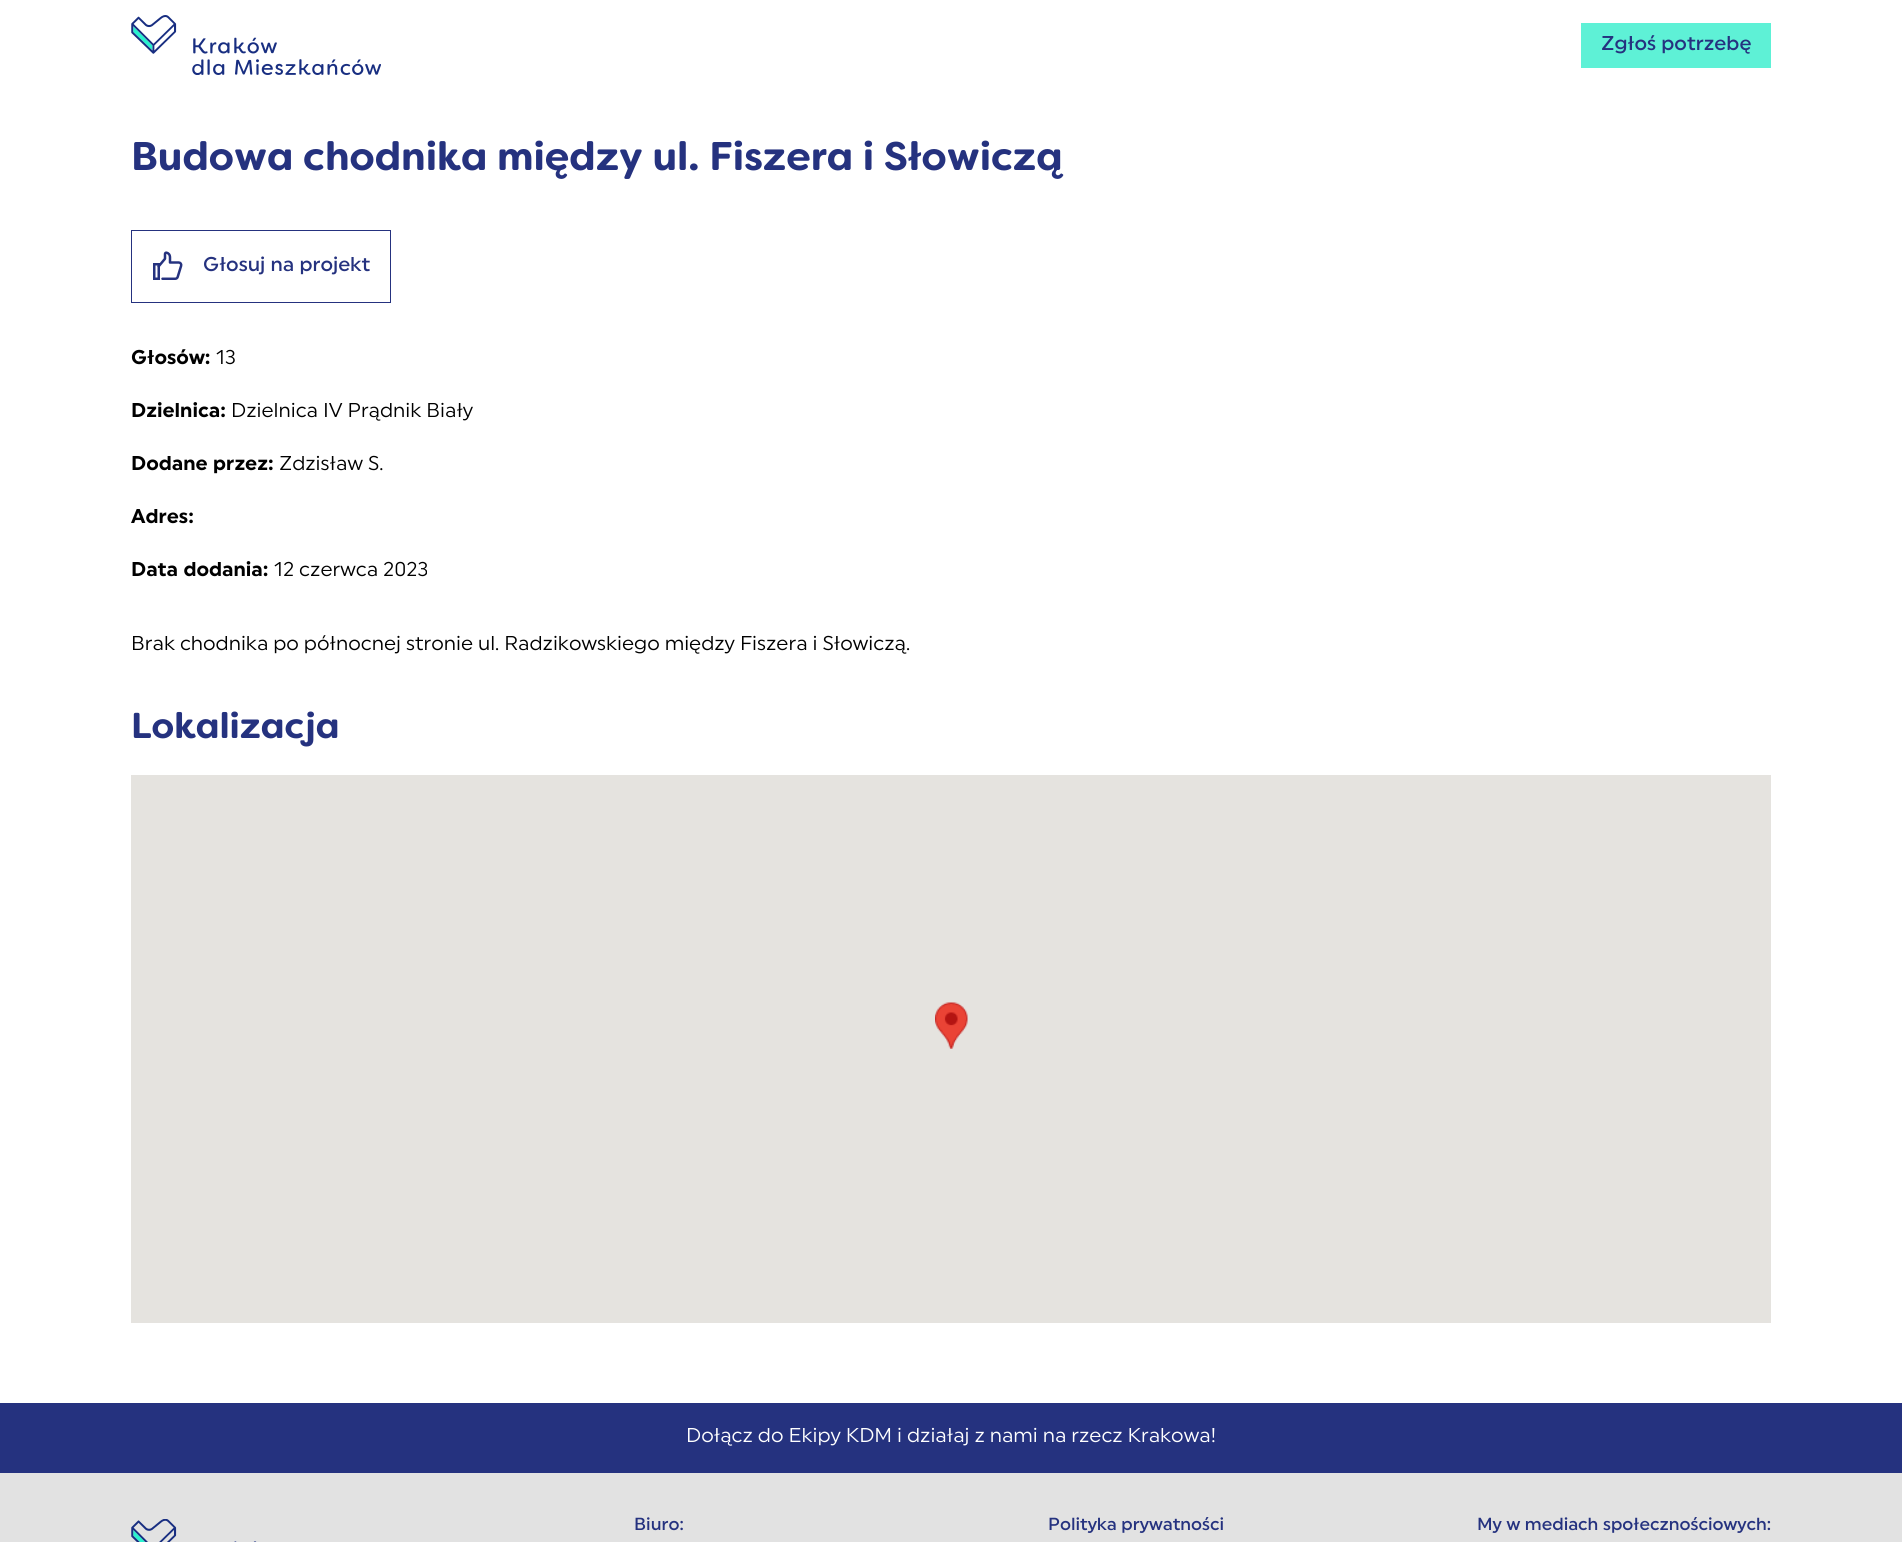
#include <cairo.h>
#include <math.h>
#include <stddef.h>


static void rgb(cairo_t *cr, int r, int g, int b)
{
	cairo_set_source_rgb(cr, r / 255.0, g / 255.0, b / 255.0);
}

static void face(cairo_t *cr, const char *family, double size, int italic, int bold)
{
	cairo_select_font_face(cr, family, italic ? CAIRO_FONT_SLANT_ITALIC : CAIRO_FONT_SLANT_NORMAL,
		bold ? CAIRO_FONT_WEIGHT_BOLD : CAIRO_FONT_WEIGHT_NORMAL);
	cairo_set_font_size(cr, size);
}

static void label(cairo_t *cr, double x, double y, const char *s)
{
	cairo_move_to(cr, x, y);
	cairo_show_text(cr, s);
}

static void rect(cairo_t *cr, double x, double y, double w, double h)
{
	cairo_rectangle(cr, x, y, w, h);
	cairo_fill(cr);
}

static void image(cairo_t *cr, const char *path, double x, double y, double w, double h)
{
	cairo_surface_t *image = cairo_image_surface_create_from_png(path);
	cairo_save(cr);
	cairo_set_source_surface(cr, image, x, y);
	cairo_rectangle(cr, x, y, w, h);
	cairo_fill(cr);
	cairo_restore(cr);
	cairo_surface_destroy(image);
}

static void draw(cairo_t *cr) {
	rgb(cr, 255, 255, 255);
	cairo_paint(cr);
	image(cr, "image0.png", 131, 15, 250, 60);
	rgb(cr, 94, 241, 214);
	rect(cr, 1581, 23, 190, 45);
	face(cr, "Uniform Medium", 20, 0, 0);
	rgb(cr, 37, 50, 127);
	label(cr, 1601, 50, "Zgłoś potrzebę");
	face(cr, "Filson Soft", 40, 0, 1);
	label(cr, 131, 170, "Budowa chodnika między ul. Fiszera i Słowiczą");
	cairo_rectangle(cr, 131.5, 230.5, 259, 72);
	cairo_set_line_width(cr, 1);
	cairo_stroke(cr);
	image(cr, "image1.png", 153, 251, 30, 29);
	face(cr, "Uniform Medium", 20, 0, 0);
	label(cr, 203, 271, "Głosuj na projekt");
	face(cr, "Uniform", 20, 0, 1);
	rgb(cr, 0, 0, 0);
	label(cr, 131, 364, "Głosów:");
	face(cr, "Uniform", 20, 0, 0);
	label(cr, 216, 364, "13");
	face(cr, "Uniform", 20, 0, 1);
	label(cr, 131, 417, "Dzielnica:");
	face(cr, "Uniform", 20, 0, 0);
	label(cr, 231, 417, "Dzielnica IV Prądnik Biały");
	face(cr, "Uniform", 20, 0, 1);
	label(cr, 131, 470, "Dodane przez:");
	face(cr, "Uniform", 20, 0, 0);
	label(cr, 279, 470, "Zdzisław S.");
	face(cr, "Uniform", 20, 0, 1);
	label(cr, 131, 523, "Adres:");
	label(cr, 131, 576, "Data dodania:");
	face(cr, "Uniform", 20, 0, 0);
	label(cr, 274, 576, "12 czerwca 2023");
	label(cr, 131, 650, "Brak chodnika po północnej stronie ul. Radzikowskiego między Fiszera i Słowiczą.");
	face(cr, "Filson Soft", 36, 0, 1);
	rgb(cr, 37, 50, 127);
	label(cr, 131, 738, "Lokalizacja");
	rgb(cr, 229, 227, 223);
	rect(cr, 131, 775, 1640, 548);
	image(cr, "image2.png", 935, 1002, 33, 47);
	rgb(cr, 37, 50, 127);
	rect(cr, 0, 1403, 1902, 70);
	face(cr, "Uniform", 20, 0, 0);
	rgb(cr, 255, 255, 255);
	label(cr, 686, 1442, "Dołącz do Ekipy KDM i działaj z nami na rzecz Krakowa!");
	rgb(cr, 226, 226, 226);
	rect(cr, 0, 1473, 1902, 69);
	image(cr, "image3.png", 131, 1519, 126, 23);
	face(cr, "Uniform Medium", 17.5, 0, 0);
	rgb(cr, 37, 50, 127);
	label(cr, 634, 1530, "Biuro:");
	label(cr, 1048, 1530, "Polityka prywatności");
	label(cr, 1477, 1530, "My w mediach społecznościowych:");
}

int main(void) {
	cairo_surface_t *surface = cairo_image_surface_create(CAIRO_FORMAT_RGB24, 1902, 1542);
	cairo_t *cr = cairo_create(surface);
	cairo_font_options_t *options = cairo_font_options_create();
	cairo_font_options_set_hint_metrics(options, CAIRO_HINT_METRICS_OFF);
	cairo_font_options_set_hint_style(options, CAIRO_HINT_STYLE_NONE);
	cairo_set_font_options(cr, options);
	cairo_set_miter_limit(cr, 4);
	draw(cr);
	cairo_surface_write_to_png(surface, "render.png");
	cairo_font_options_destroy(options);
	cairo_destroy(cr);
	cairo_surface_destroy(surface);
	return 0;
}
